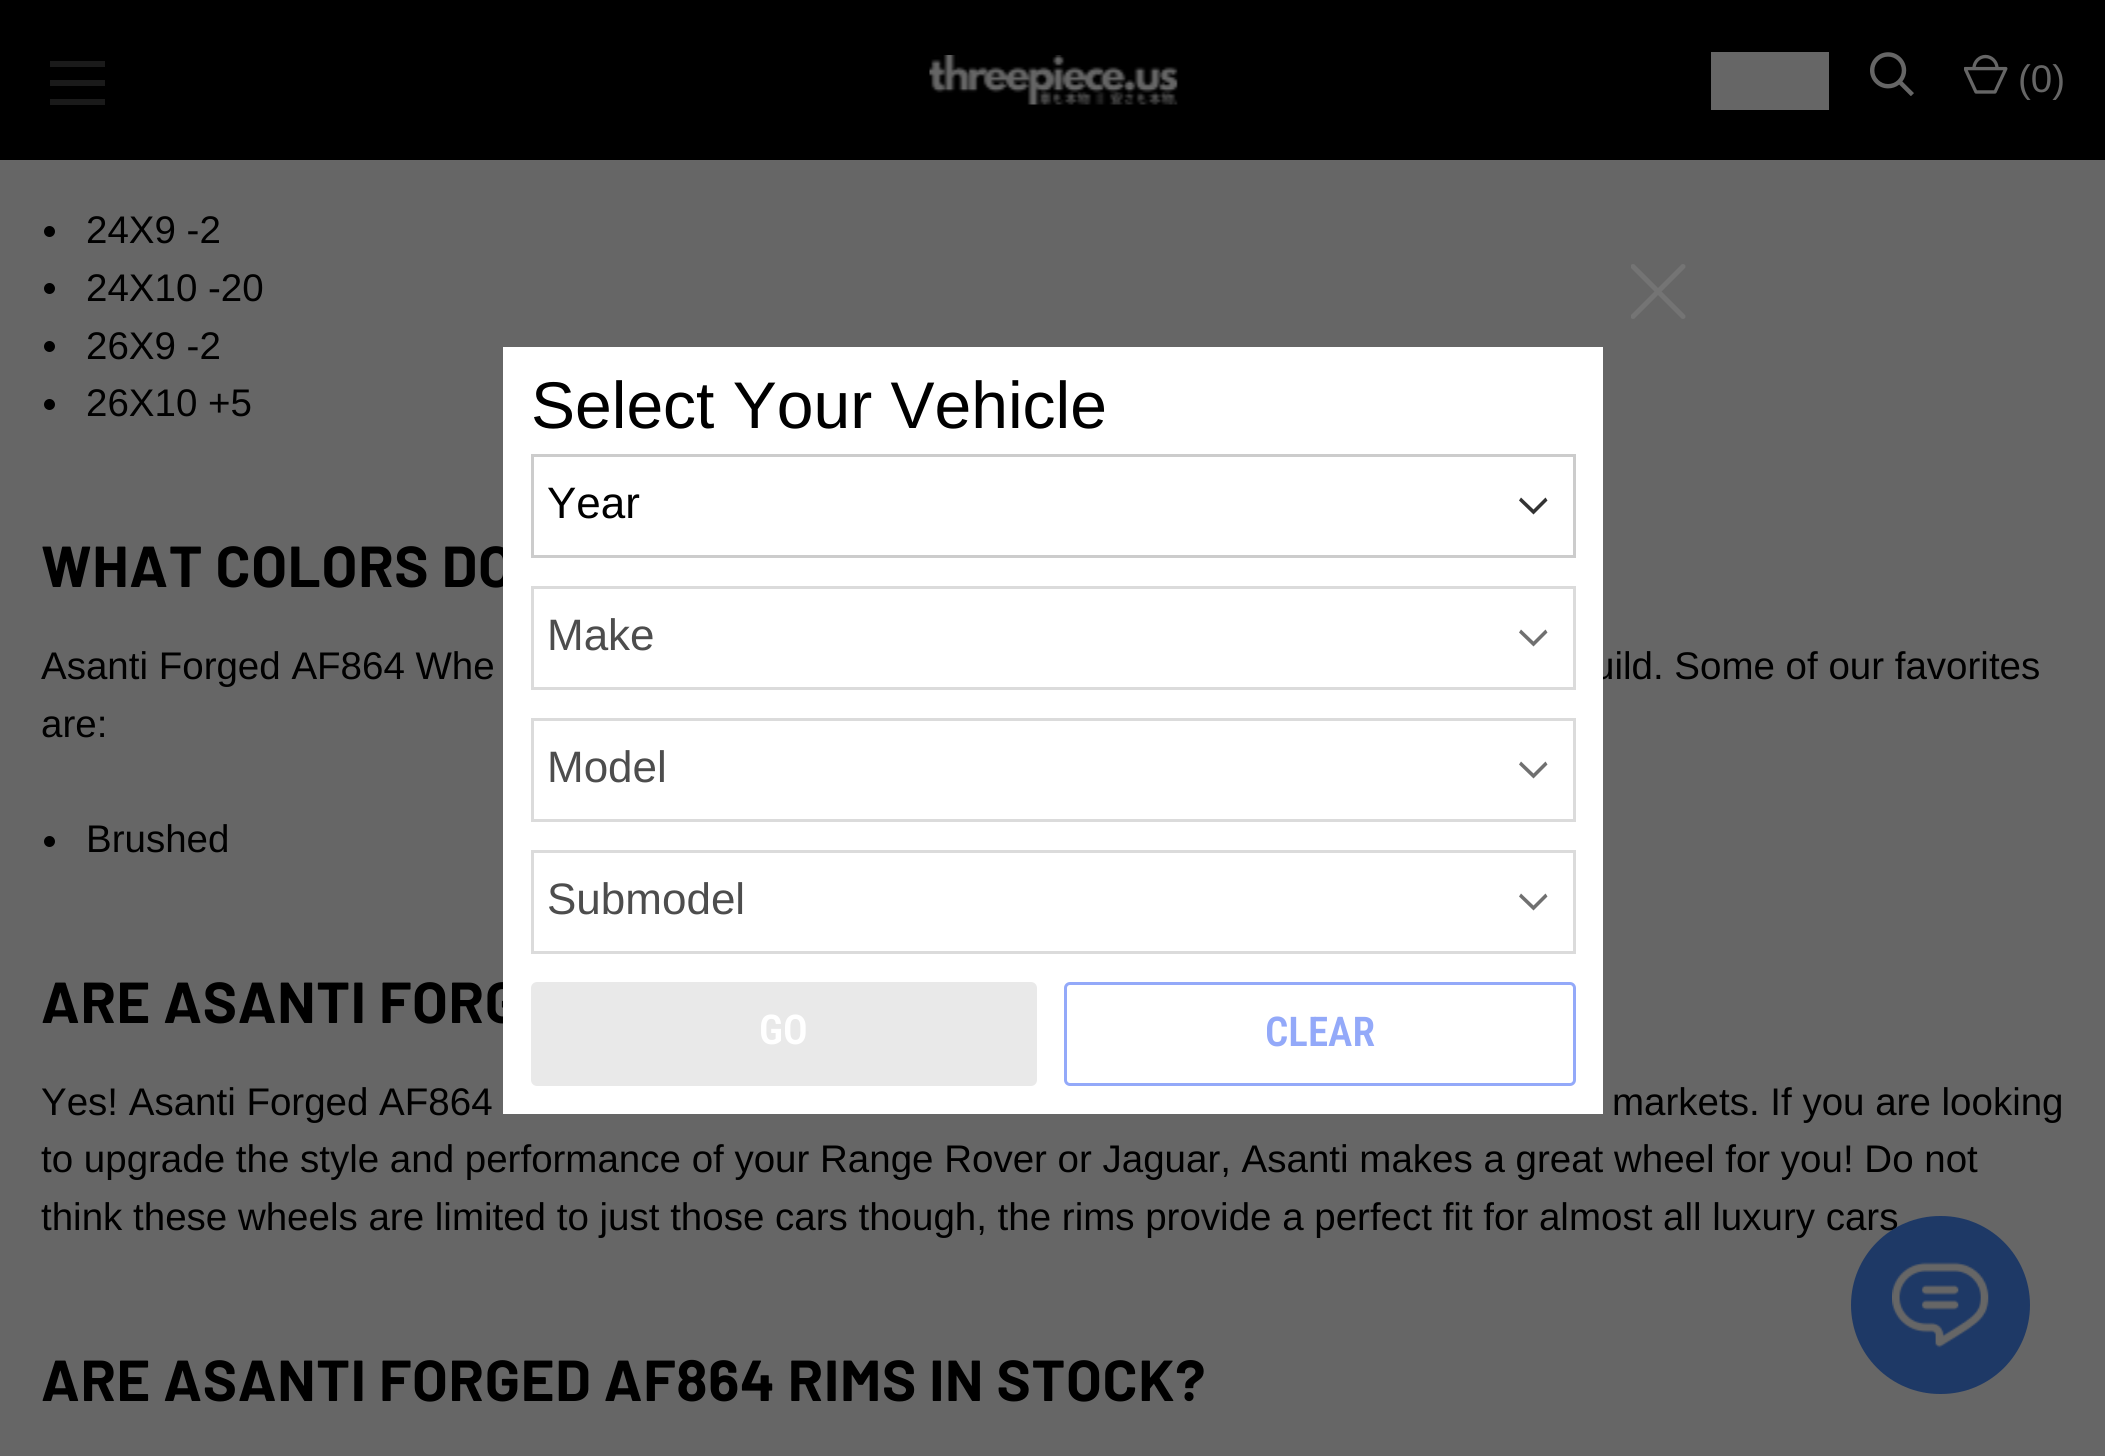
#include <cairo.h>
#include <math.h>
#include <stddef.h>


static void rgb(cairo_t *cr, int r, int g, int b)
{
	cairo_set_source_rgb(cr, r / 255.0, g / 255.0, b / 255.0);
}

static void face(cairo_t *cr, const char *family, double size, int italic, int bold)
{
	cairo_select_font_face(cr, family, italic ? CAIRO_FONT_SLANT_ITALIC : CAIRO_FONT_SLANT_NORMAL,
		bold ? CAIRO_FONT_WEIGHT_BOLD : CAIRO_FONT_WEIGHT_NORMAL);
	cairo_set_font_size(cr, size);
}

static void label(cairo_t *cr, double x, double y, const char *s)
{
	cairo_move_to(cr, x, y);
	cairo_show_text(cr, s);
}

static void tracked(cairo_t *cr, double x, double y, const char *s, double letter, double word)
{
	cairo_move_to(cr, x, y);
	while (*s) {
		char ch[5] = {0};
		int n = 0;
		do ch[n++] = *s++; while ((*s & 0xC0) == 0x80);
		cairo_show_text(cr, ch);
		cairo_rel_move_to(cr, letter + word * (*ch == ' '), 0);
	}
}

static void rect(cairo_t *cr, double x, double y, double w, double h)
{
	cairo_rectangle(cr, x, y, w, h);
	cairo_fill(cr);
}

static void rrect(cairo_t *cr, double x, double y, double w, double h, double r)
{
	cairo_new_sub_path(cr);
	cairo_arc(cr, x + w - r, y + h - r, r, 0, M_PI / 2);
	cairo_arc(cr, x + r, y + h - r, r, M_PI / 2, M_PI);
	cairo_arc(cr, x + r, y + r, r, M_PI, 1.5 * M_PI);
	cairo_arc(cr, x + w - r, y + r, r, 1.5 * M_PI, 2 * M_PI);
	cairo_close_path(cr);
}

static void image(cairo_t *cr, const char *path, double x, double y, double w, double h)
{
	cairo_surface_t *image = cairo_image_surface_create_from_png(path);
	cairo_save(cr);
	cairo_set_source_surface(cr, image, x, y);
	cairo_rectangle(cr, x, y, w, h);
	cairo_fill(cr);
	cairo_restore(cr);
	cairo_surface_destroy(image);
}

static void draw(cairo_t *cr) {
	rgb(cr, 102, 102, 102);
	cairo_paint(cr);
	rgb(cr, 0, 0, 0);
	rect(cr, 0, 0, 2105, 160);
	rgb(cr, 26, 26, 26);
	rect(cr, 50, 80, 55, 6);
	rect(cr, 50, 61, 55, 6);
	rect(cr, 50, 99, 55, 6);
	image(cr, "image0.png", 929, 55, 249, 50);
	rgb(cr, 102, 102, 102);
	rect(cr, 1711, 52, 118, 58);
	image(cr, "image1.png", 1870, 52, 44, 44);
	image(cr, "image2.png", 1964, 54, 44, 40);
	face(cr, "Liberation Sans", 38.5, 0, 0);
	label(cr, 2018, 92, "(0)");
	rgb(cr, 0, 0, 0);
	cairo_new_path(cr);
	cairo_arc(cr, 49.5, 231.5, 5.5, 0, 2 * M_PI);
	cairo_fill(cr);
	label(cr, 86, 243, "24X9 -2");
	cairo_new_path(cr);
	cairo_arc(cr, 49.5, 288.5, 5.5, 0, 2 * M_PI);
	cairo_fill(cr);
	label(cr, 86, 301, "24X10 -20");
	cairo_new_path(cr);
	cairo_arc(cr, 49.5, 346.5, 5.5, 0, 2 * M_PI);
	cairo_fill(cr);
	label(cr, 86, 359, "26X9 -2");
	cairo_new_path(cr);
	cairo_arc(cr, 49.5, 404.5, 5.5, 0, 2 * M_PI);
	cairo_fill(cr);
	label(cr, 86, 416, "26X10 +5");
	face(cr, "Barlow", 57.75, 0, 1);
	tracked(cr, 41, 587, "WHAT COLORS DO", 0.7, 0);
	face(cr, "Liberation Sans", 38.5, 0, 0);
	label(cr, 41, 679, "Asanti Forged AF864 Whe");
	label(cr, 1593, 679, "uild. Some of our favorites");
	label(cr, 41, 737, "are:");
	cairo_new_path(cr);
	cairo_arc(cr, 49.5, 841.5, 5.5, 0, 2 * M_PI);
	cairo_fill(cr);
	label(cr, 86, 852, "Brushed");
	face(cr, "Barlow", 57.75, 0, 1);
	tracked(cr, 41, 1023, "ARE ASANTI FORG", 0.7, 0);
	face(cr, "Liberation Sans", 38.5, 0, 0);
	label(cr, 41, 1115, "Yes! Asanti Forged AF864");
	label(cr, 1612, 1115, "markets. If you are looking");
	label(cr, 41, 1172, "to upgrade the style and performance of your Range Rover or Jaguar, Asanti makes a great wheel for you! Do not");
	label(cr, 41, 1230, "think these wheels are limited to just those cars though, the rims provide a perfect fit for almost all luxury cars");
	face(cr, "Barlow", 57.75, 0, 1);
	tracked(cr, 41, 1401, "ARE ASANTI FORGED AF864 RIMS IN STOCK?", 0.7, 0);
	cairo_save(cr);
	cairo_rectangle(cr, 1631, 264, 55, 55);
	cairo_clip(cr);
	cairo_new_path(cr);
	cairo_move_to(cr, 1633, 266.5);
	cairo_line_to(cr, 1683, 316.5);
	cairo_move_to(cr, 1683, 266.5);
	cairo_line_to(cr, 1633, 316.5);
	rgb(cr, 116, 116, 116);
	cairo_set_line_width(cr, 5);
	cairo_set_line_cap(cr, CAIRO_LINE_CAP_ROUND);
	cairo_stroke(cr);
	cairo_restore(cr);
	rgb(cr, 255, 255, 255);
	rect(cr, 503, 347, 1100, 767);
	face(cr, "Liberation Sans", 66, 0, 0);
	rgb(cr, 0, 0, 0);
	label(cr, 531, 428, "Select Your Vehicle");
	rgb(cr, 51, 51, 51);
	cairo_set_fill_rule(cr, CAIRO_FILL_RULE_EVEN_ODD);
	cairo_new_path(cr);
	cairo_move_to(cr, 1533.5, 514.5);
	cairo_line_to(cr, 1547.5, 500.5);
	cairo_line_to(cr, 1545.5, 497.5);
	cairo_line_to(cr, 1533.5, 509.5);
	cairo_line_to(cr, 1521, 497.5);
	cairo_line_to(cr, 1519, 500.5);
	cairo_close_path(cr);
	cairo_fill(cr);
	cairo_rectangle(cr, 532.5, 455.5, 1042, 101);
	rgb(cr, 204, 204, 204);
	cairo_set_line_width(cr, 3);
	cairo_stroke(cr);
	face(cr, "Liberation Sans", 44, 0, 0);
	rgb(cr, 0, 0, 0);
	label(cr, 547, 518, "Year");
	rgb(cr, 112, 112, 112);
	cairo_new_path(cr);
	cairo_move_to(cr, 1533.5, 646.5);
	cairo_line_to(cr, 1547.5, 632.5);
	cairo_line_to(cr, 1545.5, 629.5);
	cairo_line_to(cr, 1533.5, 641.5);
	cairo_line_to(cr, 1521, 629.5);
	cairo_line_to(cr, 1519, 632.5);
	cairo_close_path(cr);
	cairo_fill(cr);
	cairo_rectangle(cr, 532.5, 587.5, 1042, 101);
	rgb(cr, 219, 219, 219);
	cairo_stroke(cr);
	rgb(cr, 77, 77, 77);
	label(cr, 547, 650, "Make");
	rgb(cr, 112, 112, 112);
	cairo_new_path(cr);
	cairo_move_to(cr, 1533.5, 778.5);
	cairo_line_to(cr, 1547.5, 764.5);
	cairo_line_to(cr, 1545.5, 761.5);
	cairo_line_to(cr, 1533.5, 773.5);
	cairo_line_to(cr, 1521, 761.5);
	cairo_line_to(cr, 1519, 764.5);
	cairo_close_path(cr);
	cairo_fill(cr);
	cairo_rectangle(cr, 532.5, 719.5, 1042, 101);
	rgb(cr, 219, 219, 219);
	cairo_stroke(cr);
	rgb(cr, 77, 77, 77);
	label(cr, 547, 782, "Model");
	rgb(cr, 112, 112, 112);
	cairo_new_path(cr);
	cairo_move_to(cr, 1533.5, 910.5);
	cairo_line_to(cr, 1547.5, 896.5);
	cairo_line_to(cr, 1545.5, 893.5);
	cairo_line_to(cr, 1533.5, 905.5);
	cairo_line_to(cr, 1521, 893.5);
	cairo_line_to(cr, 1519, 896.5);
	cairo_close_path(cr);
	cairo_fill(cr);
	cairo_rectangle(cr, 532.5, 851.5, 1042, 101);
	rgb(cr, 219, 219, 219);
	cairo_stroke(cr);
	rgb(cr, 77, 77, 77);
	label(cr, 547, 914, "Submodel");
	rgb(cr, 233, 233, 233);
	rrect(cr, 531, 982, 506, 104, 6);
	cairo_fill(cr);
	face(cr, "Roboto Condensed SemiBold", 41, 0, 0);
	rgb(cr, 255, 255, 255);
	label(cr, 759, 1044, "GO");
	rrect(cr, 1065.5, 983.5, 509, 101, 4.5);
	rgb(cr, 147, 169, 249);
	cairo_stroke(cr);
	label(cr, 1265, 1046, "CLEAR");
	rgb(cr, 30, 57, 102);
	rrect(cr, 1851, 1216, 179, 178, 89);
	cairo_fill(cr);
	image(cr, "image3.png", 1892, 1262, 97, 86);
}

int main(void) {
	cairo_surface_t *surface = cairo_image_surface_create(CAIRO_FORMAT_RGB24, 2105, 1456);
	cairo_t *cr = cairo_create(surface);
	cairo_font_options_t *options = cairo_font_options_create();
	cairo_font_options_set_hint_metrics(options, CAIRO_HINT_METRICS_OFF);
	cairo_font_options_set_hint_style(options, CAIRO_HINT_STYLE_NONE);
	cairo_set_font_options(cr, options);
	cairo_set_miter_limit(cr, 4);
	draw(cr);
	cairo_surface_write_to_png(surface, "render.png");
	cairo_font_options_destroy(options);
	cairo_destroy(cr);
	cairo_surface_destroy(surface);
	return 0;
}
